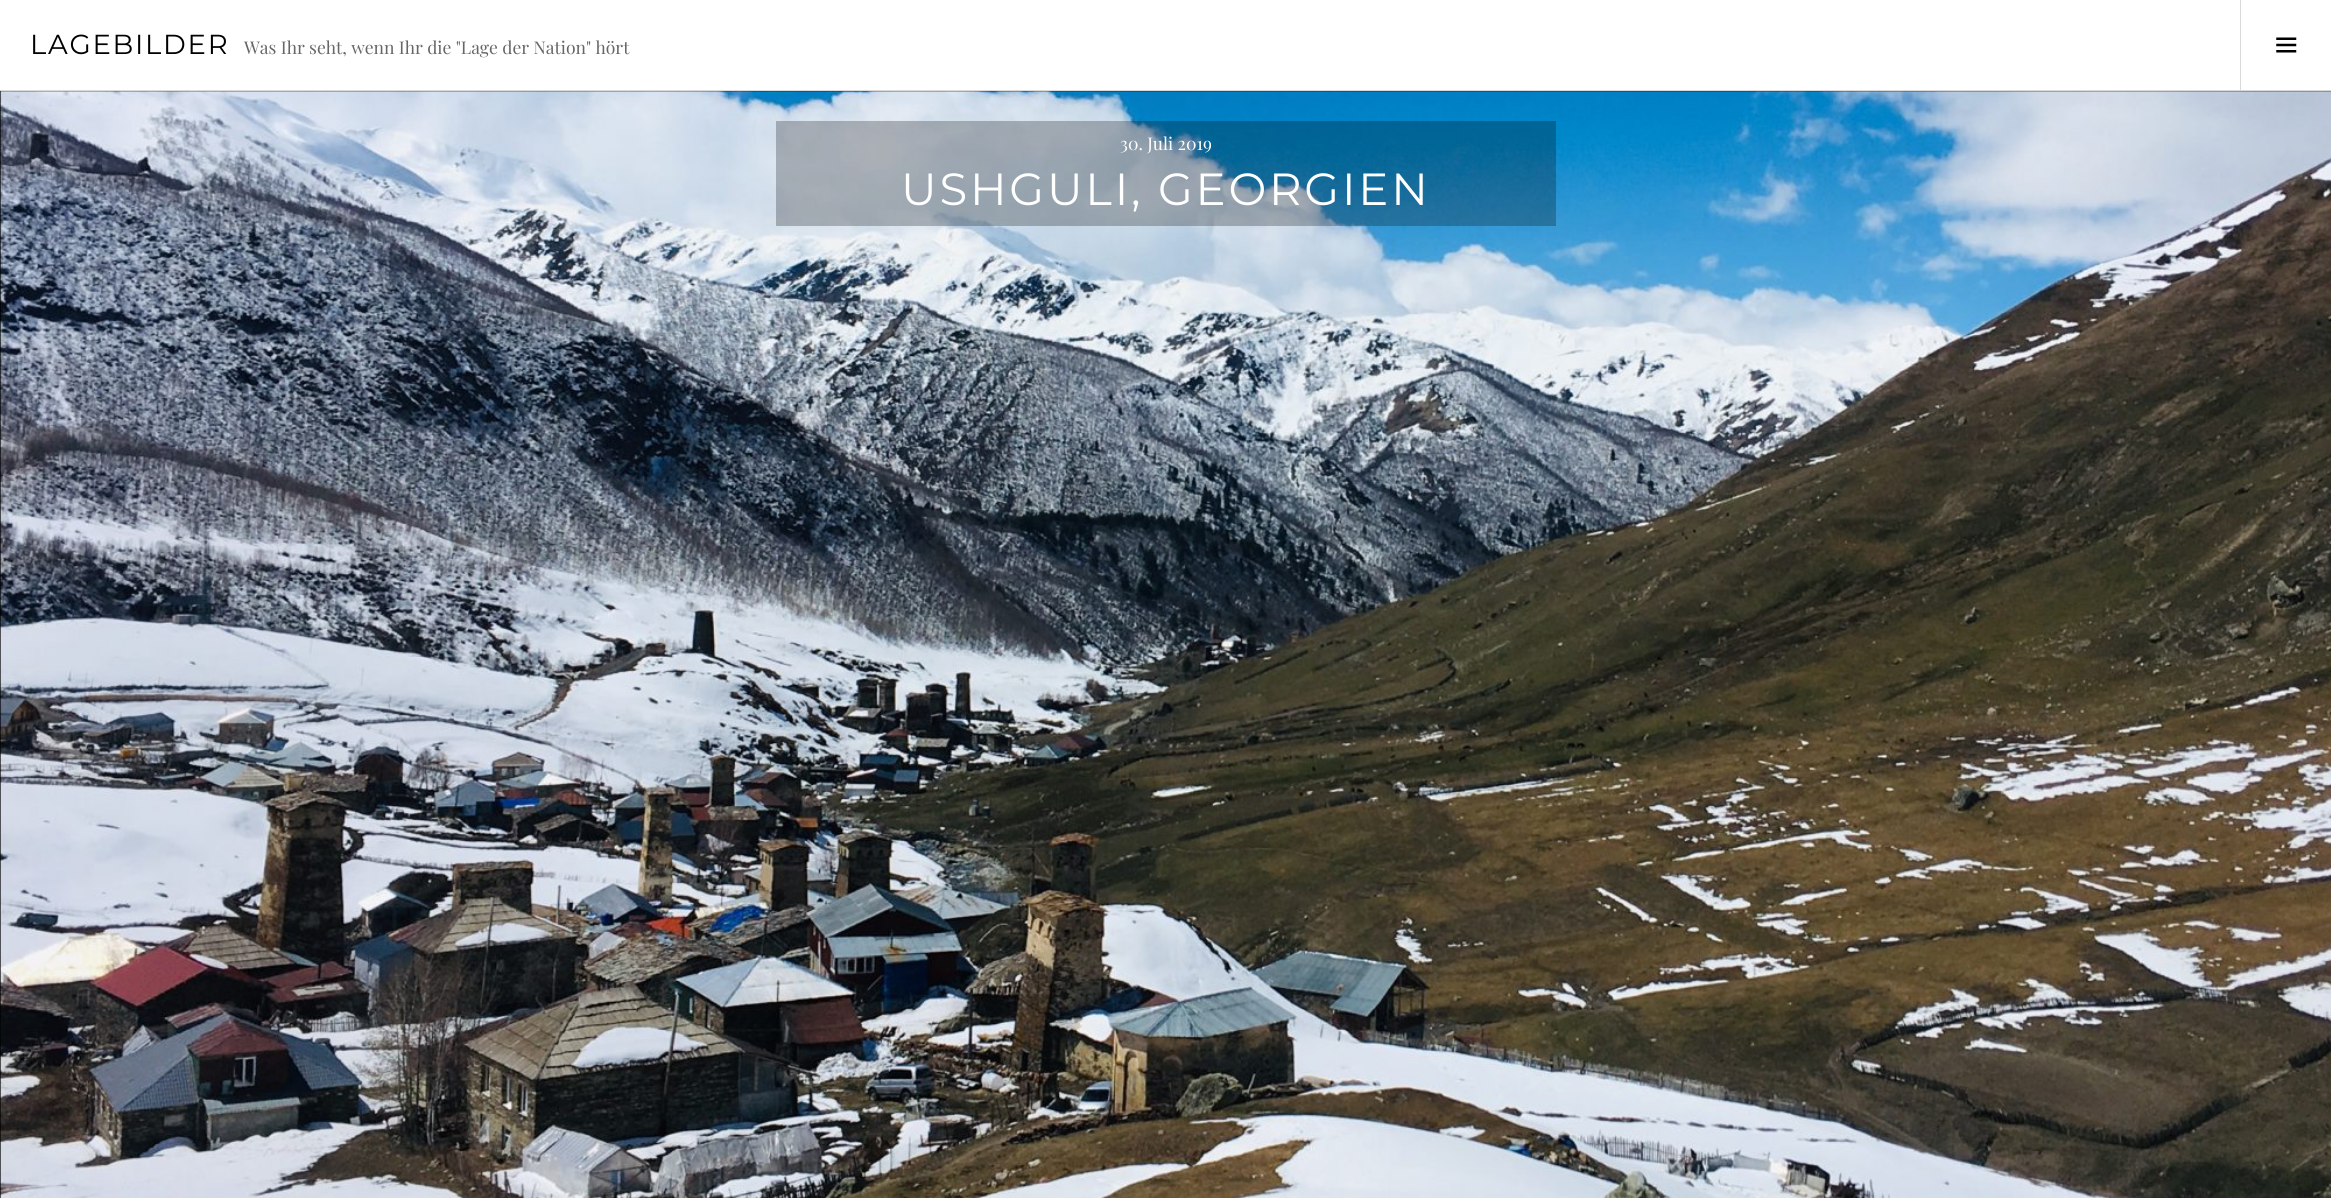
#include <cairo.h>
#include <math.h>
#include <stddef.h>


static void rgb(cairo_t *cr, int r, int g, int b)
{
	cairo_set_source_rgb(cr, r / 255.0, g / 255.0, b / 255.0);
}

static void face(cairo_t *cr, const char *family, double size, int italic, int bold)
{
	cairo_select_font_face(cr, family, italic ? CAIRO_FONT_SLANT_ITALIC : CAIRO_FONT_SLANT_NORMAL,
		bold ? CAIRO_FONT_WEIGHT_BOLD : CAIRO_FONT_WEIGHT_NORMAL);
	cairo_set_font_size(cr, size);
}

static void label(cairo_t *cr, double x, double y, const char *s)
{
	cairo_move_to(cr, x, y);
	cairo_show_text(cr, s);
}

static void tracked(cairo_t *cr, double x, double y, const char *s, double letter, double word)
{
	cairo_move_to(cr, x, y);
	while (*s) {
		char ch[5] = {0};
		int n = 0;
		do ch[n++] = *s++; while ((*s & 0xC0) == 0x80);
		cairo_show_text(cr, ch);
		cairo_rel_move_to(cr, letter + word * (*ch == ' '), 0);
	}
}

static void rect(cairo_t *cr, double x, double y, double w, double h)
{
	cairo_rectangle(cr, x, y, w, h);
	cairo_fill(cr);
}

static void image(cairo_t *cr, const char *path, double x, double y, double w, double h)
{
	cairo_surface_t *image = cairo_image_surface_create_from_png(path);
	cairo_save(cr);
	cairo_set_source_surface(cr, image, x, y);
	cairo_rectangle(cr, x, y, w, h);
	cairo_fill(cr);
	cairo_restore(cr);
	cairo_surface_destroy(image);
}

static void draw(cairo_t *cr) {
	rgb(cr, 255, 255, 255);
	cairo_paint(cr);
	rgb(cr, 217, 217, 217);
	rect(cr, 0, 90, 2331, 1);
	face(cr, "Montserrat", 27.5, 0, 0);
	rgb(cr, 0, 0, 0);
	tracked(cr, 30, 54, "LAGEBILDER", 1.75, 0);
	face(cr, "Playfair Display", 17.5, 0, 0);
	rgb(cr, 102, 102, 102);
	label(cr, 244, 54, "Was Ihr seht, wenn Ihr die \"Lage der Nation\" hört");
	rgb(cr, 217, 217, 217);
	rect(cr, 2240, 0, 1, 90);
	image(cr, "image0.png", 2276, 37, 21, 16);
	rgb(cr, 0, 0, 0);
	rect(cr, 0, 91, 2331, 1107);
	image(cr, "image1.png", 0, 91, 2331, 1107);
	cairo_set_source_rgba(cr, 0, 0, 0, 0.25);
	rect(cr, 776, 121, 780, 105);
	rgb(cr, 255, 255, 255);
	label(cr, 1120, 150, "30. Juli 2019");
	face(cr, "Montserrat", 45, 0, 0);
	tracked(cr, 901, 205, "USHGULI, GEORGIEN", 2.8, 0);
}

int main(void) {
	cairo_surface_t *surface = cairo_image_surface_create(CAIRO_FORMAT_RGB24, 2331, 1198);
	cairo_t *cr = cairo_create(surface);
	cairo_font_options_t *options = cairo_font_options_create();
	cairo_font_options_set_hint_metrics(options, CAIRO_HINT_METRICS_OFF);
	cairo_font_options_set_hint_style(options, CAIRO_HINT_STYLE_NONE);
	cairo_set_font_options(cr, options);
	cairo_set_miter_limit(cr, 4);
	draw(cr);
	cairo_surface_write_to_png(surface, "render.png");
	cairo_font_options_destroy(options);
	cairo_destroy(cr);
	cairo_surface_destroy(surface);
	return 0;
}
